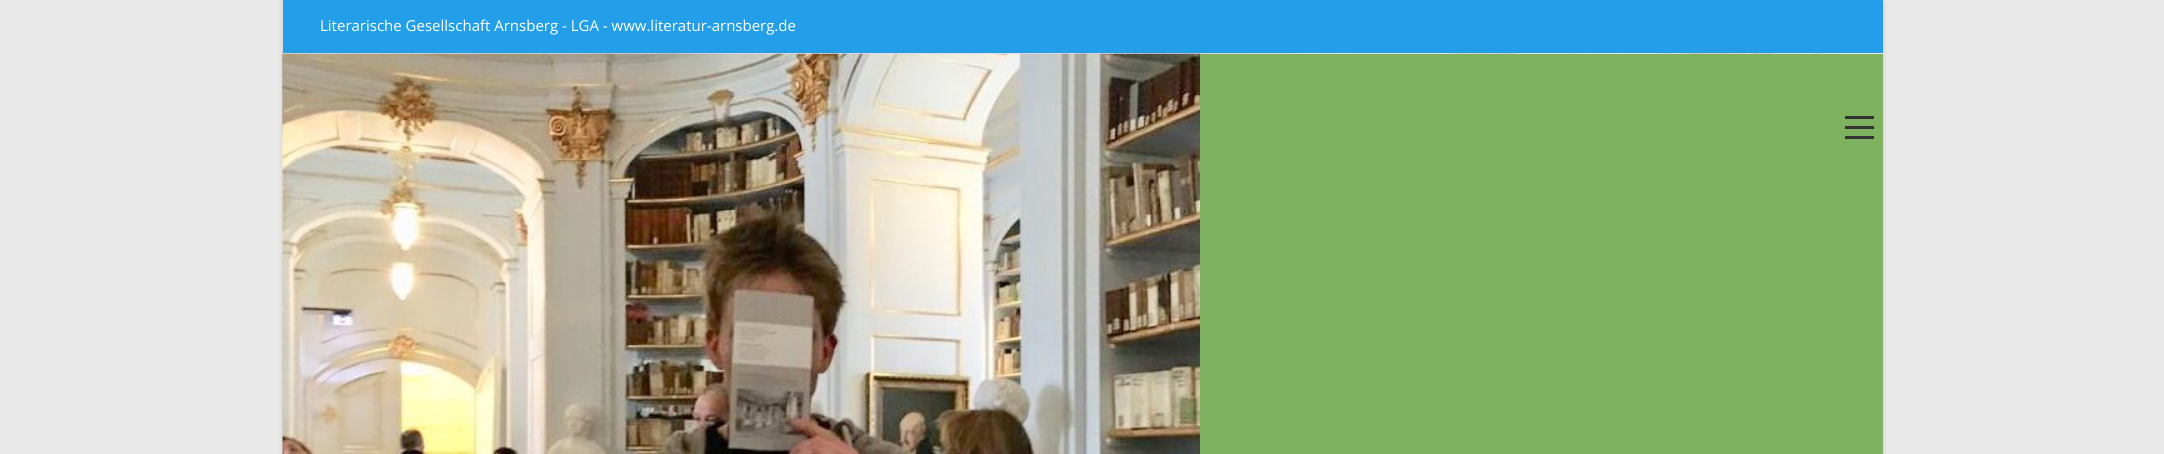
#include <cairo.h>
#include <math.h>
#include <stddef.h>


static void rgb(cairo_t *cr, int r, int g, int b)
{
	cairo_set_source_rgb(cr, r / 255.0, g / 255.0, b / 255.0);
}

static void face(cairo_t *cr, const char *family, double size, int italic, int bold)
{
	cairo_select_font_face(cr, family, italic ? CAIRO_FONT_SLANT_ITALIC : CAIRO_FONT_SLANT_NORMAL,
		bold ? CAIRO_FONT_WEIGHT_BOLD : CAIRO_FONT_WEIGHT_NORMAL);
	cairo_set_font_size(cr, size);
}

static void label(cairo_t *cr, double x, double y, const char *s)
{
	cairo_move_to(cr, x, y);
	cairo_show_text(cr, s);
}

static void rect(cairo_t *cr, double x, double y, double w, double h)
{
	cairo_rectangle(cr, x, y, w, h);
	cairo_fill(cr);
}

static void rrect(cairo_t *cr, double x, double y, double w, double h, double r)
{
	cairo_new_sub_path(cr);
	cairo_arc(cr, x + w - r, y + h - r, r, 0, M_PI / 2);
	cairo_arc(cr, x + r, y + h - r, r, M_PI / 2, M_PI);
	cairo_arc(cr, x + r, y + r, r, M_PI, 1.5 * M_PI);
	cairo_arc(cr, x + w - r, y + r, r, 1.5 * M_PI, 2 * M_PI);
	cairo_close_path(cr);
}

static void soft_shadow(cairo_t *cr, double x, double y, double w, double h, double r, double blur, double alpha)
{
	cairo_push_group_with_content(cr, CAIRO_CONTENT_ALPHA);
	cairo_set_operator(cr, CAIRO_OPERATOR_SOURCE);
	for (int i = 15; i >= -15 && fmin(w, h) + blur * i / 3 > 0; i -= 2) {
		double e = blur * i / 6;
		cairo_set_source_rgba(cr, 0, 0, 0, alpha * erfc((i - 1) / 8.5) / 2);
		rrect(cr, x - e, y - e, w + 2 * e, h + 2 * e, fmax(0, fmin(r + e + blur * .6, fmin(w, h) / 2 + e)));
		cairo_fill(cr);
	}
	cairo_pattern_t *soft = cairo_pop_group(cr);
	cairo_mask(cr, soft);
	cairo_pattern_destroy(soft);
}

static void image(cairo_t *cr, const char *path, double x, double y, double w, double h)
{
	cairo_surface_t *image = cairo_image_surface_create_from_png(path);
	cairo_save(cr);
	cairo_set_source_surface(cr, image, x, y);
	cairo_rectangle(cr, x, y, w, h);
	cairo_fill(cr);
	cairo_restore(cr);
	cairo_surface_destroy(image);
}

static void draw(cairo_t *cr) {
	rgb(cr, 233, 233, 233);
	cairo_paint(cr);
	rgb(cr, 0, 0, 0);
	soft_shadow(cr, 283, 1, 1600, 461, 0, 2.5, 0.15);
	rgb(cr, 34, 159, 232);
	rect(cr, 283, 0, 1600, 53);
	rgb(cr, 241, 241, 241);
	rect(cr, 283, 53, 1600, 1);
	face(cr, "Open Sans", 15, 0, 0);
	rgb(cr, 255, 255, 255);
	label(cr, 320, 31, "Literarische Gesellschaft Arnsberg - LGA - www.literatur-arnsberg.de");
	image(cr, "image0.png", 282, 53, 1601, 401);
	image(cr, "image1.png", 282, 53, 918, 401);
	rgb(cr, 127, 178, 96);
	rect(cr, 1200, 54, 683, 400);
	rgb(cr, 51, 51, 51);
	rect(cr, 1845, 126, 29, 3);
	rect(cr, 1845, 116, 29, 3);
	rect(cr, 1845, 136, 29, 3);
}

int main(void) {
	cairo_surface_t *surface = cairo_image_surface_create(CAIRO_FORMAT_RGB24, 2164, 454);
	cairo_t *cr = cairo_create(surface);
	cairo_font_options_t *options = cairo_font_options_create();
	cairo_font_options_set_hint_metrics(options, CAIRO_HINT_METRICS_OFF);
	cairo_font_options_set_hint_style(options, CAIRO_HINT_STYLE_NONE);
	cairo_set_font_options(cr, options);
	cairo_set_miter_limit(cr, 4);
	draw(cr);
	cairo_surface_write_to_png(surface, "render.png");
	cairo_font_options_destroy(options);
	cairo_destroy(cr);
	cairo_surface_destroy(surface);
	return 0;
}
